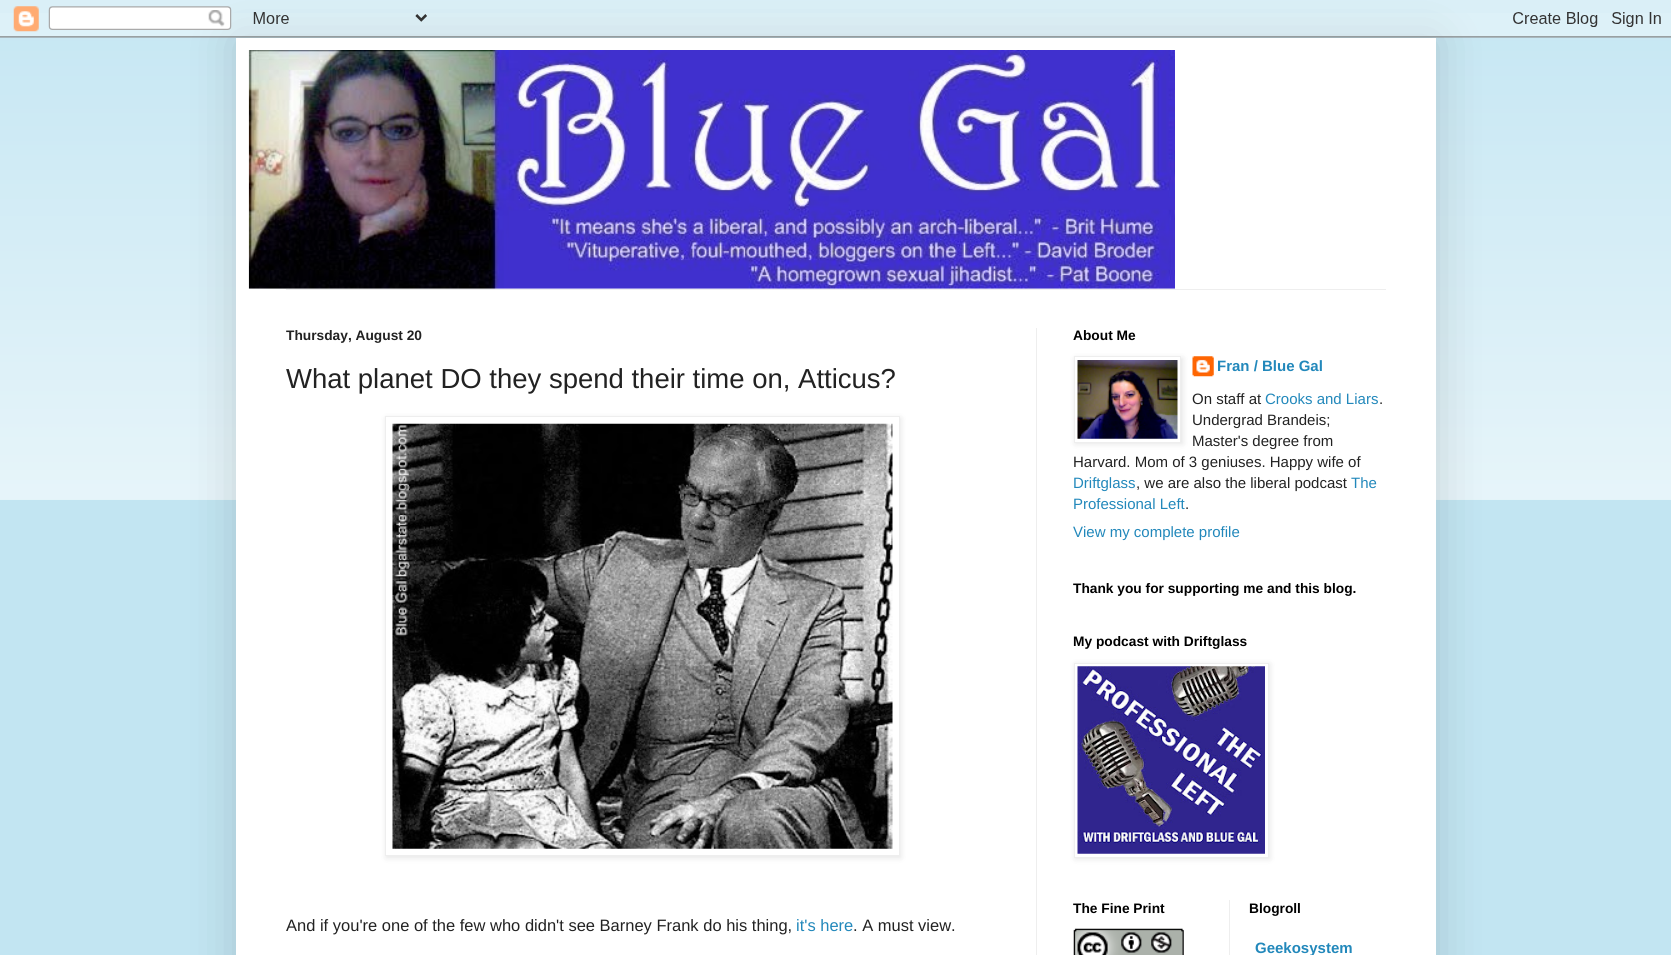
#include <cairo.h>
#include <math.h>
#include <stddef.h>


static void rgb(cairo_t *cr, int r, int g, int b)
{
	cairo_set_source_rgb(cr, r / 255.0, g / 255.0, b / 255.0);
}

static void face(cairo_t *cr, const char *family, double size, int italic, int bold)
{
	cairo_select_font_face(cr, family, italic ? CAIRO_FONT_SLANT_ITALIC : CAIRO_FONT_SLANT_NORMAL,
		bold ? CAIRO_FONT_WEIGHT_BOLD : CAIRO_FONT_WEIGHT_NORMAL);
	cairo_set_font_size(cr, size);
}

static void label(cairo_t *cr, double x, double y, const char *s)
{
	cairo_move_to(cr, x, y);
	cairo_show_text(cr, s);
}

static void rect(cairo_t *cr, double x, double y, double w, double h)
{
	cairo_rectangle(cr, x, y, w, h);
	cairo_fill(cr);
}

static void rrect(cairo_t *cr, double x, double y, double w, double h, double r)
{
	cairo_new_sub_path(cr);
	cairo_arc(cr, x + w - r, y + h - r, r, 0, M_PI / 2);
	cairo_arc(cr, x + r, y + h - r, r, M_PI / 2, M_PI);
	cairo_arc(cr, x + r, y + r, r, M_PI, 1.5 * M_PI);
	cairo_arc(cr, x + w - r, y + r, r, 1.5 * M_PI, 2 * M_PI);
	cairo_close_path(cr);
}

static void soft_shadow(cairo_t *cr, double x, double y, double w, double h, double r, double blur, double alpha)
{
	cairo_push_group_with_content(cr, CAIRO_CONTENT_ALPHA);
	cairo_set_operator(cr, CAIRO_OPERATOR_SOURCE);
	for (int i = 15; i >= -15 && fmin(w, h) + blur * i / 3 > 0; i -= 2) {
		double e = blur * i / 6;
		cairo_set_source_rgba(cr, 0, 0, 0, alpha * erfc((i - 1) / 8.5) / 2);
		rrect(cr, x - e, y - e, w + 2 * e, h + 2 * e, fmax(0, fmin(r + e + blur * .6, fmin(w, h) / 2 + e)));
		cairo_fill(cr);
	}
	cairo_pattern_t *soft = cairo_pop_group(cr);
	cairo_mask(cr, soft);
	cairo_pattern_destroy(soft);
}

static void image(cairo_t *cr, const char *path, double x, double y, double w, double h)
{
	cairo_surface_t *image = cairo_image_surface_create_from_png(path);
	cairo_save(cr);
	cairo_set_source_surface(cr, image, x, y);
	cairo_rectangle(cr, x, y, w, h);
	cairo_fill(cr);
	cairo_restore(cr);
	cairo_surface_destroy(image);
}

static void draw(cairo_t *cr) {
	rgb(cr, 194, 229, 242);
	cairo_paint(cr);
	image(cr, "image1.png", 0, 13, 1671, 487);
	rgb(cr, 0, 0, 0);
	soft_shadow(cr, 236, 38, 1200, 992, 0, 25, 0.15);
	image(cr, "image0.png", 0, 0, 1671, 38);
	rgb(cr, 255, 255, 255);
	rect(cr, 236, 38, 1200, 917);
	image(cr, "image2.png", 248, 50, 927, 239);
	rgb(cr, 238, 238, 238);
	rect(cr, 286, 289, 1100, 1);
	rect(cr, 1036, 328, 1, 627);
	face(cr, "Liberation Sans", 13.75, 0, 1);
	rgb(cr, 34, 34, 34);
	label(cr, 286, 340, "Thursday, August 20");
	face(cr, "Liberation Sans", 27.5, 0, 0);
	label(cr, 286, 388, "What planet DO they spend their time on, Atticus?");
	rgb(cr, 0, 0, 0);
	soft_shadow(cr, 386, 418, 515, 440, 0, 3, 0.1);
	rgb(cr, 255, 255, 255);
	cairo_rectangle(cr, 385.5, 416.5, 514, 439);
	cairo_fill_preserve(cr);
	rgb(cr, 238, 238, 238);
	cairo_set_line_width(cr, 1);
	cairo_stroke(cr);
	image(cr, "image3.png", 392, 423, 501, 426);
	face(cr, "Liberation Sans", 16.5, 0, 0);
	rgb(cr, 34, 34, 34);
	label(cr, 286, 931, "And if you're one of the few who didn't see Barney Frank do his thing,");
	rgb(cr, 34, 136, 187);
	label(cr, 796, 931, "it's here");
	rgb(cr, 34, 34, 34);
	label(cr, 853, 931, ". A must view.");
	face(cr, "Liberation Sans", 13.75, 0, 1);
	rgb(cr, 0, 0, 0);
	label(cr, 1073, 340, "About Me");
	image(cr, "image5.png", 1192, 356, 22, 21);
	rgb(cr, 0, 0, 0);
	soft_shadow(cr, 1075, 358, 108, 86, 0, 3, 0.1);
	rgb(cr, 255, 255, 255);
	cairo_rectangle(cr, 1074.5, 356.5, 106, 86);
	cairo_fill_preserve(cr);
	rgb(cr, 238, 238, 238);
	cairo_stroke(cr);
	image(cr, "image4.png", 1077, 360, 101, 79);
	face(cr, "Liberation Sans", 15, 0, 1);
	rgb(cr, 34, 136, 187);
	label(cr, 1217, 371, "Fran / Blue Gal");
	face(cr, "Liberation Sans", 15, 0, 0);
	rgb(cr, 34, 34, 34);
	label(cr, 1192, 404, "On staff at");
	rgb(cr, 34, 136, 187);
	label(cr, 1265, 404, "Crooks and Liars");
	rgb(cr, 34, 34, 34);
	label(cr, 1379, 404, ".");
	label(cr, 1192, 425, "Undergrad Brandeis;");
	label(cr, 1192, 446, "Master's degree from");
	label(cr, 1073, 467, "Harvard. Mom of 3 geniuses. Happy wife of");
	rgb(cr, 34, 136, 187);
	label(cr, 1073, 488, "Driftglass");
	rgb(cr, 34, 34, 34);
	label(cr, 1136, 488, ", we are also the liberal podcast");
	rgb(cr, 34, 136, 187);
	label(cr, 1351, 488, "The");
	label(cr, 1073, 509, "Professional Left");
	rgb(cr, 34, 34, 34);
	label(cr, 1185, 509, ".");
	rgb(cr, 34, 136, 187);
	label(cr, 1073, 537, "View my complete profile");
	face(cr, "Liberation Sans", 13.75, 0, 1);
	rgb(cr, 0, 0, 0);
	label(cr, 1073, 593, "Thank you for supporting me and this blog.");
	label(cr, 1073, 646, "My podcast with Driftglass");
	rgb(cr, 0, 0, 0);
	soft_shadow(cr, 1075, 664, 195, 195, 0, 3, 0.1);
	rgb(cr, 255, 255, 255);
	cairo_rectangle(cr, 1074.5, 663.5, 194, 194);
	cairo_fill_preserve(cr);
	rgb(cr, 238, 238, 238);
	cairo_stroke(cr);
	image(cr, "image6.png", 1077, 666, 188, 188);
	rgb(cr, 0, 0, 0);
	label(cr, 1073, 913, "The Fine Print");
	image(cr, "image7.png", 1073, 928, 111, 27);
	rgb(cr, 238, 238, 238);
	rect(cr, 1229, 900, 1, 55);
	rgb(cr, 0, 0, 0);
	label(cr, 1249, 913, "Blogroll");
	face(cr, "Liberation Sans", 15, 0, 1);
	rgb(cr, 34, 136, 187);
	label(cr, 1255, 953, "Geekosystem");
}

int main(void) {
	cairo_surface_t *surface = cairo_image_surface_create(CAIRO_FORMAT_RGB24, 1671, 955);
	cairo_t *cr = cairo_create(surface);
	cairo_font_options_t *options = cairo_font_options_create();
	cairo_font_options_set_hint_metrics(options, CAIRO_HINT_METRICS_OFF);
	cairo_font_options_set_hint_style(options, CAIRO_HINT_STYLE_NONE);
	cairo_set_font_options(cr, options);
	cairo_set_miter_limit(cr, 4);
	draw(cr);
	cairo_surface_write_to_png(surface, "render.png");
	cairo_font_options_destroy(options);
	cairo_destroy(cr);
	cairo_surface_destroy(surface);
	return 0;
}
